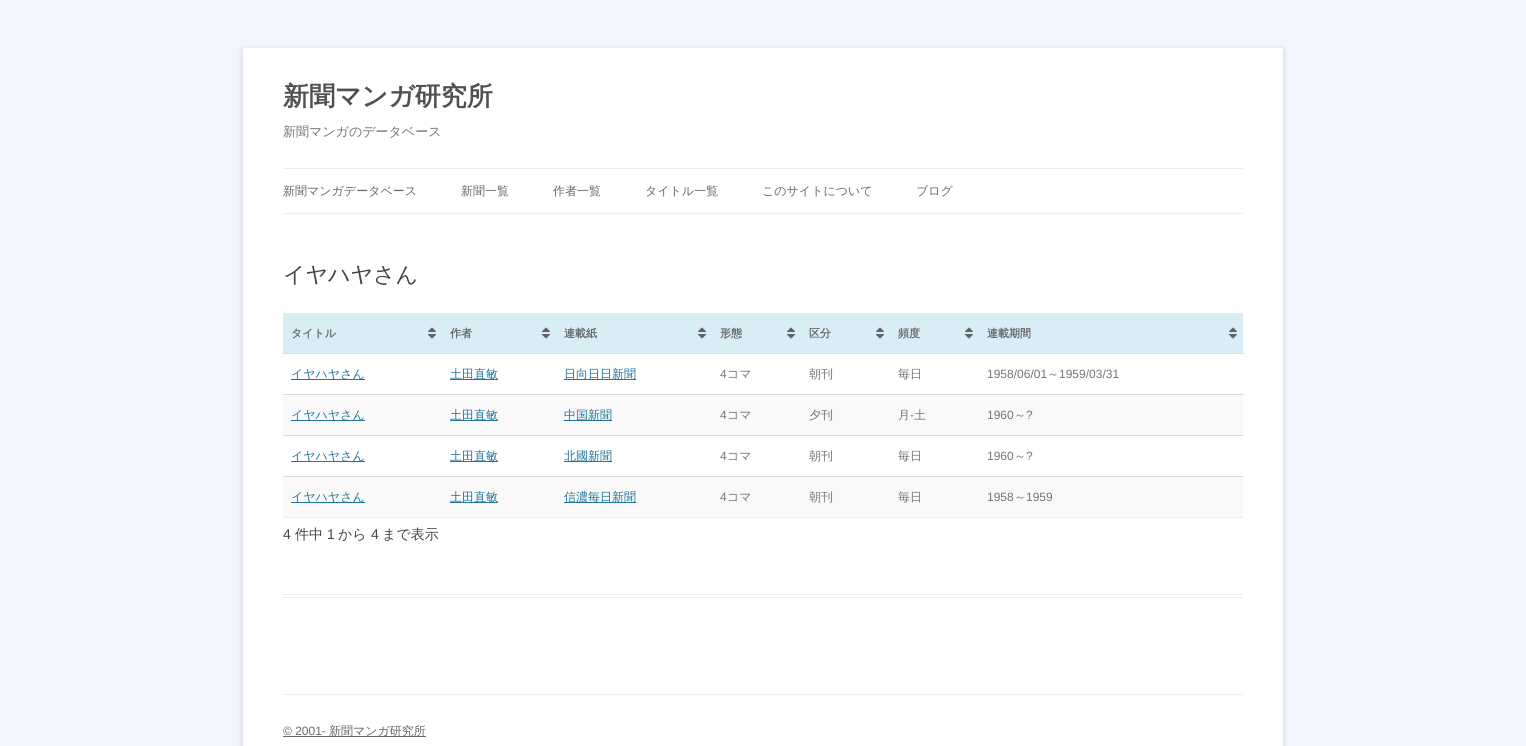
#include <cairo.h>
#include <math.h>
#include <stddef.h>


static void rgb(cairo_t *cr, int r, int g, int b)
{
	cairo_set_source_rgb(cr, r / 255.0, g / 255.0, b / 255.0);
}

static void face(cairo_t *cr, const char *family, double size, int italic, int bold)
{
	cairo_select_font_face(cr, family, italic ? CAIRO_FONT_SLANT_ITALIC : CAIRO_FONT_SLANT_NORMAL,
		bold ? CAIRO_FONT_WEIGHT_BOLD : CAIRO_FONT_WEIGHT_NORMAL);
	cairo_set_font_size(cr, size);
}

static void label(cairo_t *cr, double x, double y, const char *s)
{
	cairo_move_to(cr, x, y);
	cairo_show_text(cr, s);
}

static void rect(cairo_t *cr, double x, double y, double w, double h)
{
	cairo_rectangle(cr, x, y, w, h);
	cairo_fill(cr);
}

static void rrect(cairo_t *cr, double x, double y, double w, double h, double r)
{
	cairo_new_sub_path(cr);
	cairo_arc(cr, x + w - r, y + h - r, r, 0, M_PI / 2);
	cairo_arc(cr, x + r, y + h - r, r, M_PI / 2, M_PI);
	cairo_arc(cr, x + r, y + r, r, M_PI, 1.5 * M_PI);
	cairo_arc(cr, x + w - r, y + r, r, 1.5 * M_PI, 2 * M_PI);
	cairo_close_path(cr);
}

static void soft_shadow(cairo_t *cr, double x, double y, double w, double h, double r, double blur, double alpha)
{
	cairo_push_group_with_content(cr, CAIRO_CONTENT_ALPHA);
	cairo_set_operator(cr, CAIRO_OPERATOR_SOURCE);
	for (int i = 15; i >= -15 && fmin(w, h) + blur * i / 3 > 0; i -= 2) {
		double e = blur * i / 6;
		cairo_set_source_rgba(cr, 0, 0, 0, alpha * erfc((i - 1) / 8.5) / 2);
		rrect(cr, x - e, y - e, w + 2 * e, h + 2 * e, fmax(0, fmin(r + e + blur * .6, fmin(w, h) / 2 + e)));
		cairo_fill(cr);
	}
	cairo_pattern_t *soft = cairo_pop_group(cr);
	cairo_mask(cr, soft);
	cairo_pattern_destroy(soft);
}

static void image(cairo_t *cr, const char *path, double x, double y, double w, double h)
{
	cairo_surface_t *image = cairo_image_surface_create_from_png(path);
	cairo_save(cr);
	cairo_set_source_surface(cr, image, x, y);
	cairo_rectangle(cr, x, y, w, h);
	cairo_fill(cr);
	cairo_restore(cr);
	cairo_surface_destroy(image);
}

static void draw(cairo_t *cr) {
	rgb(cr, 242, 246, 255);
	cairo_paint(cr);
	rgb(cr, 100, 100, 100);
	soft_shadow(cr, 243, 50, 1040, 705, 0, 3, 0.3);
	rgb(cr, 255, 255, 255);
	rect(cr, 243, 48, 1040, 698);
	face(cr, "WenQuanYi Zen Hei", 26, 0, 1);
	rgb(cr, 81, 81, 81);
	label(cr, 283, 105, "新聞マンガ研究所");
	face(cr, "WenQuanYi Zen Hei Medium", 13, 0, 0);
	rgb(cr, 117, 117, 117);
	label(cr, 283, 136, "新聞マンガのデータベース");
	rgb(cr, 237, 237, 237);
	rect(cr, 283, 168, 960, 1);
	rect(cr, 283, 213, 960, 1);
	face(cr, "WenQuanYi Zen Hei Medium", 12, 0, 0);
	rgb(cr, 104, 104, 104);
	label(cr, 283, 195, "新聞マンガデータベース");
	label(cr, 461, 195, "新聞一覧");
	label(cr, 553, 195, "作者一覧");
	label(cr, 645, 195, "タイトル一覧");
	label(cr, 762, 195, "このサイトについて");
	label(cr, 916, 195, "ブログ");
	rgb(cr, 237, 237, 237);
	rect(cr, 283, 594, 960, 1);
	rect(cr, 283, 597, 960, 1);
	face(cr, "WenQuanYi Zen Hei Medium", 22, 0, 0);
	rgb(cr, 68, 68, 68);
	label(cr, 283, 282, "イヤハヤさん");
	rgb(cr, 237, 237, 237);
	rect(cr, 283, 517, 960, 1);
	rgb(cr, 217, 237, 247);
	rect(cr, 283, 313, 960, 40);
	face(cr, "WenQuanYi Zen Hei", 11, 0, 1);
	rgb(cr, 104, 104, 104);
	label(cr, 291, 337, "タイトル");
	image(cr, "image0.png", 428, 327, 8, 12);
	label(cr, 450, 337, "作者");
	image(cr, "image0.png", 542, 327, 8, 12);
	label(cr, 564, 337, "連載紙");
	image(cr, "image0.png", 698, 327, 8, 12);
	label(cr, 720, 337, "形態");
	image(cr, "image0.png", 787, 327, 8, 12);
	label(cr, 809, 337, "区分");
	image(cr, "image0.png", 876, 327, 8, 12);
	label(cr, 898, 337, "頻度");
	image(cr, "image0.png", 965, 327, 8, 12);
	rgb(cr, 221, 221, 221);
	rect(cr, 283, 353, 961, 1);
	rgb(cr, 104, 104, 104);
	label(cr, 987, 337, "連載期間");
	image(cr, "image0.png", 1229, 327, 8, 12);
	rgb(cr, 33, 117, 155);
	rect(cr, 291, 379, 74, 1);
	face(cr, "WenQuanYi Zen Hei Medium", 12, 0, 0);
	label(cr, 291, 378, "イヤハヤさん");
	rect(cr, 450, 379, 48, 1);
	label(cr, 450, 378, "土田直敏");
	rect(cr, 564, 379, 72, 1);
	label(cr, 564, 378, "日向日日新聞");
	face(cr, "Liberation Sans", 12, 0, 0);
	rgb(cr, 117, 117, 117);
	label(cr, 720, 378, "4");
	face(cr, "WenQuanYi Zen Hei Medium", 12, 0, 0);
	label(cr, 727, 378, "コマ");
	label(cr, 809, 378, "朝刊");
	label(cr, 898, 378, "毎日");
	face(cr, "Liberation Sans", 12, 0, 0);
	label(cr, 987, 378, "1958/06/01");
	face(cr, "WenQuanYi Zen Hei Medium", 12, 0, 0);
	label(cr, 1047, 378, "～");
	face(cr, "Liberation Sans", 12, 0, 0);
	label(cr, 1059, 378, "1959/03/31");
	rgb(cr, 249, 249, 249);
	rect(cr, 283, 395, 960, 40);
	rgb(cr, 33, 117, 155);
	rect(cr, 291, 420, 74, 1);
	face(cr, "WenQuanYi Zen Hei Medium", 12, 0, 0);
	label(cr, 291, 419, "イヤハヤさん");
	rect(cr, 450, 420, 48, 1);
	label(cr, 450, 419, "土田直敏");
	rect(cr, 564, 420, 48, 1);
	label(cr, 564, 419, "中国新聞");
	face(cr, "Liberation Sans", 12, 0, 0);
	rgb(cr, 117, 117, 117);
	label(cr, 720, 419, "4");
	face(cr, "WenQuanYi Zen Hei Medium", 12, 0, 0);
	label(cr, 727, 419, "コマ");
	label(cr, 809, 419, "夕刊");
	label(cr, 898, 419, "月");
	face(cr, "Liberation Sans", 12, 0, 0);
	label(cr, 910, 419, "-");
	face(cr, "WenQuanYi Zen Hei Medium", 12, 0, 0);
	label(cr, 914, 419, "土");
	rgb(cr, 221, 221, 221);
	rect(cr, 283, 394, 961, 1);
	face(cr, "Liberation Sans", 12, 0, 0);
	rgb(cr, 117, 117, 117);
	label(cr, 987, 419, "1960");
	face(cr, "WenQuanYi Zen Hei Medium", 12, 0, 0);
	label(cr, 1014, 419, "～");
	face(cr, "Liberation Sans", 12, 0, 0);
	label(cr, 1026, 419, "?");
	rgb(cr, 33, 117, 155);
	rect(cr, 291, 461, 74, 1);
	face(cr, "WenQuanYi Zen Hei Medium", 12, 0, 0);
	label(cr, 291, 460, "イヤハヤさん");
	rect(cr, 450, 461, 48, 1);
	label(cr, 450, 460, "土田直敏");
	rect(cr, 564, 461, 48, 1);
	label(cr, 564, 460, "北國新聞");
	face(cr, "Liberation Sans", 12, 0, 0);
	rgb(cr, 117, 117, 117);
	label(cr, 720, 460, "4");
	face(cr, "WenQuanYi Zen Hei Medium", 12, 0, 0);
	label(cr, 727, 460, "コマ");
	label(cr, 809, 460, "朝刊");
	label(cr, 898, 460, "毎日");
	rgb(cr, 221, 221, 221);
	rect(cr, 283, 435, 961, 1);
	face(cr, "Liberation Sans", 12, 0, 0);
	rgb(cr, 117, 117, 117);
	label(cr, 987, 460, "1960");
	face(cr, "WenQuanYi Zen Hei Medium", 12, 0, 0);
	label(cr, 1014, 460, "～");
	face(cr, "Liberation Sans", 12, 0, 0);
	label(cr, 1026, 460, "?");
	rgb(cr, 249, 249, 249);
	rect(cr, 283, 477, 960, 40);
	rgb(cr, 33, 117, 155);
	rect(cr, 291, 502, 74, 1);
	face(cr, "WenQuanYi Zen Hei Medium", 12, 0, 0);
	label(cr, 291, 501, "イヤハヤさん");
	rect(cr, 450, 502, 48, 1);
	label(cr, 450, 501, "土田直敏");
	rect(cr, 564, 502, 72, 1);
	label(cr, 564, 501, "信濃毎日新聞");
	face(cr, "Liberation Sans", 12, 0, 0);
	rgb(cr, 117, 117, 117);
	label(cr, 720, 501, "4");
	face(cr, "WenQuanYi Zen Hei Medium", 12, 0, 0);
	label(cr, 727, 501, "コマ");
	label(cr, 809, 501, "朝刊");
	label(cr, 898, 501, "毎日");
	rgb(cr, 221, 221, 221);
	rect(cr, 283, 476, 961, 1);
	face(cr, "Liberation Sans", 12, 0, 0);
	rgb(cr, 117, 117, 117);
	label(cr, 987, 501, "1958");
	face(cr, "WenQuanYi Zen Hei Medium", 12, 0, 0);
	label(cr, 1014, 501, "～");
	face(cr, "Liberation Sans", 12, 0, 0);
	label(cr, 1026, 501, "1959");
	face(cr, "Liberation Sans", 14, 0, 0);
	rgb(cr, 68, 68, 68);
	label(cr, 283, 539, "4");
	face(cr, "WenQuanYi Zen Hei Medium", 14, 0, 0);
	label(cr, 295, 539, "件中");
	face(cr, "Liberation Sans", 14, 0, 0);
	label(cr, 327, 539, "1");
	face(cr, "WenQuanYi Zen Hei Medium", 14, 0, 0);
	label(cr, 338, 539, "から");
	face(cr, "Liberation Sans", 14, 0, 0);
	label(cr, 371, 539, "4");
	face(cr, "WenQuanYi Zen Hei Medium", 14, 0, 0);
	label(cr, 382, 539, "まで表示");
	rgb(cr, 237, 237, 237);
	rect(cr, 283, 694, 960, 1);
	face(cr, "Liberation Sans", 12, 0, 0);
	rgb(cr, 104, 104, 104);
	label(cr, 283, 735, "© 2001-");
	rect(cr, 283, 736, 143, 1);
	face(cr, "WenQuanYi Zen Hei Medium", 12, 0, 0);
	label(cr, 329, 735, "新聞マンガ研究所");
}

int main(void) {
	cairo_surface_t *surface = cairo_image_surface_create(CAIRO_FORMAT_RGB24, 1526, 746);
	cairo_t *cr = cairo_create(surface);
	cairo_font_options_t *options = cairo_font_options_create();
	cairo_font_options_set_hint_metrics(options, CAIRO_HINT_METRICS_OFF);
	cairo_font_options_set_hint_style(options, CAIRO_HINT_STYLE_NONE);
	cairo_set_font_options(cr, options);
	cairo_set_miter_limit(cr, 4);
	draw(cr);
	cairo_surface_write_to_png(surface, "render.png");
	cairo_font_options_destroy(options);
	cairo_destroy(cr);
	cairo_surface_destroy(surface);
	return 0;
}
